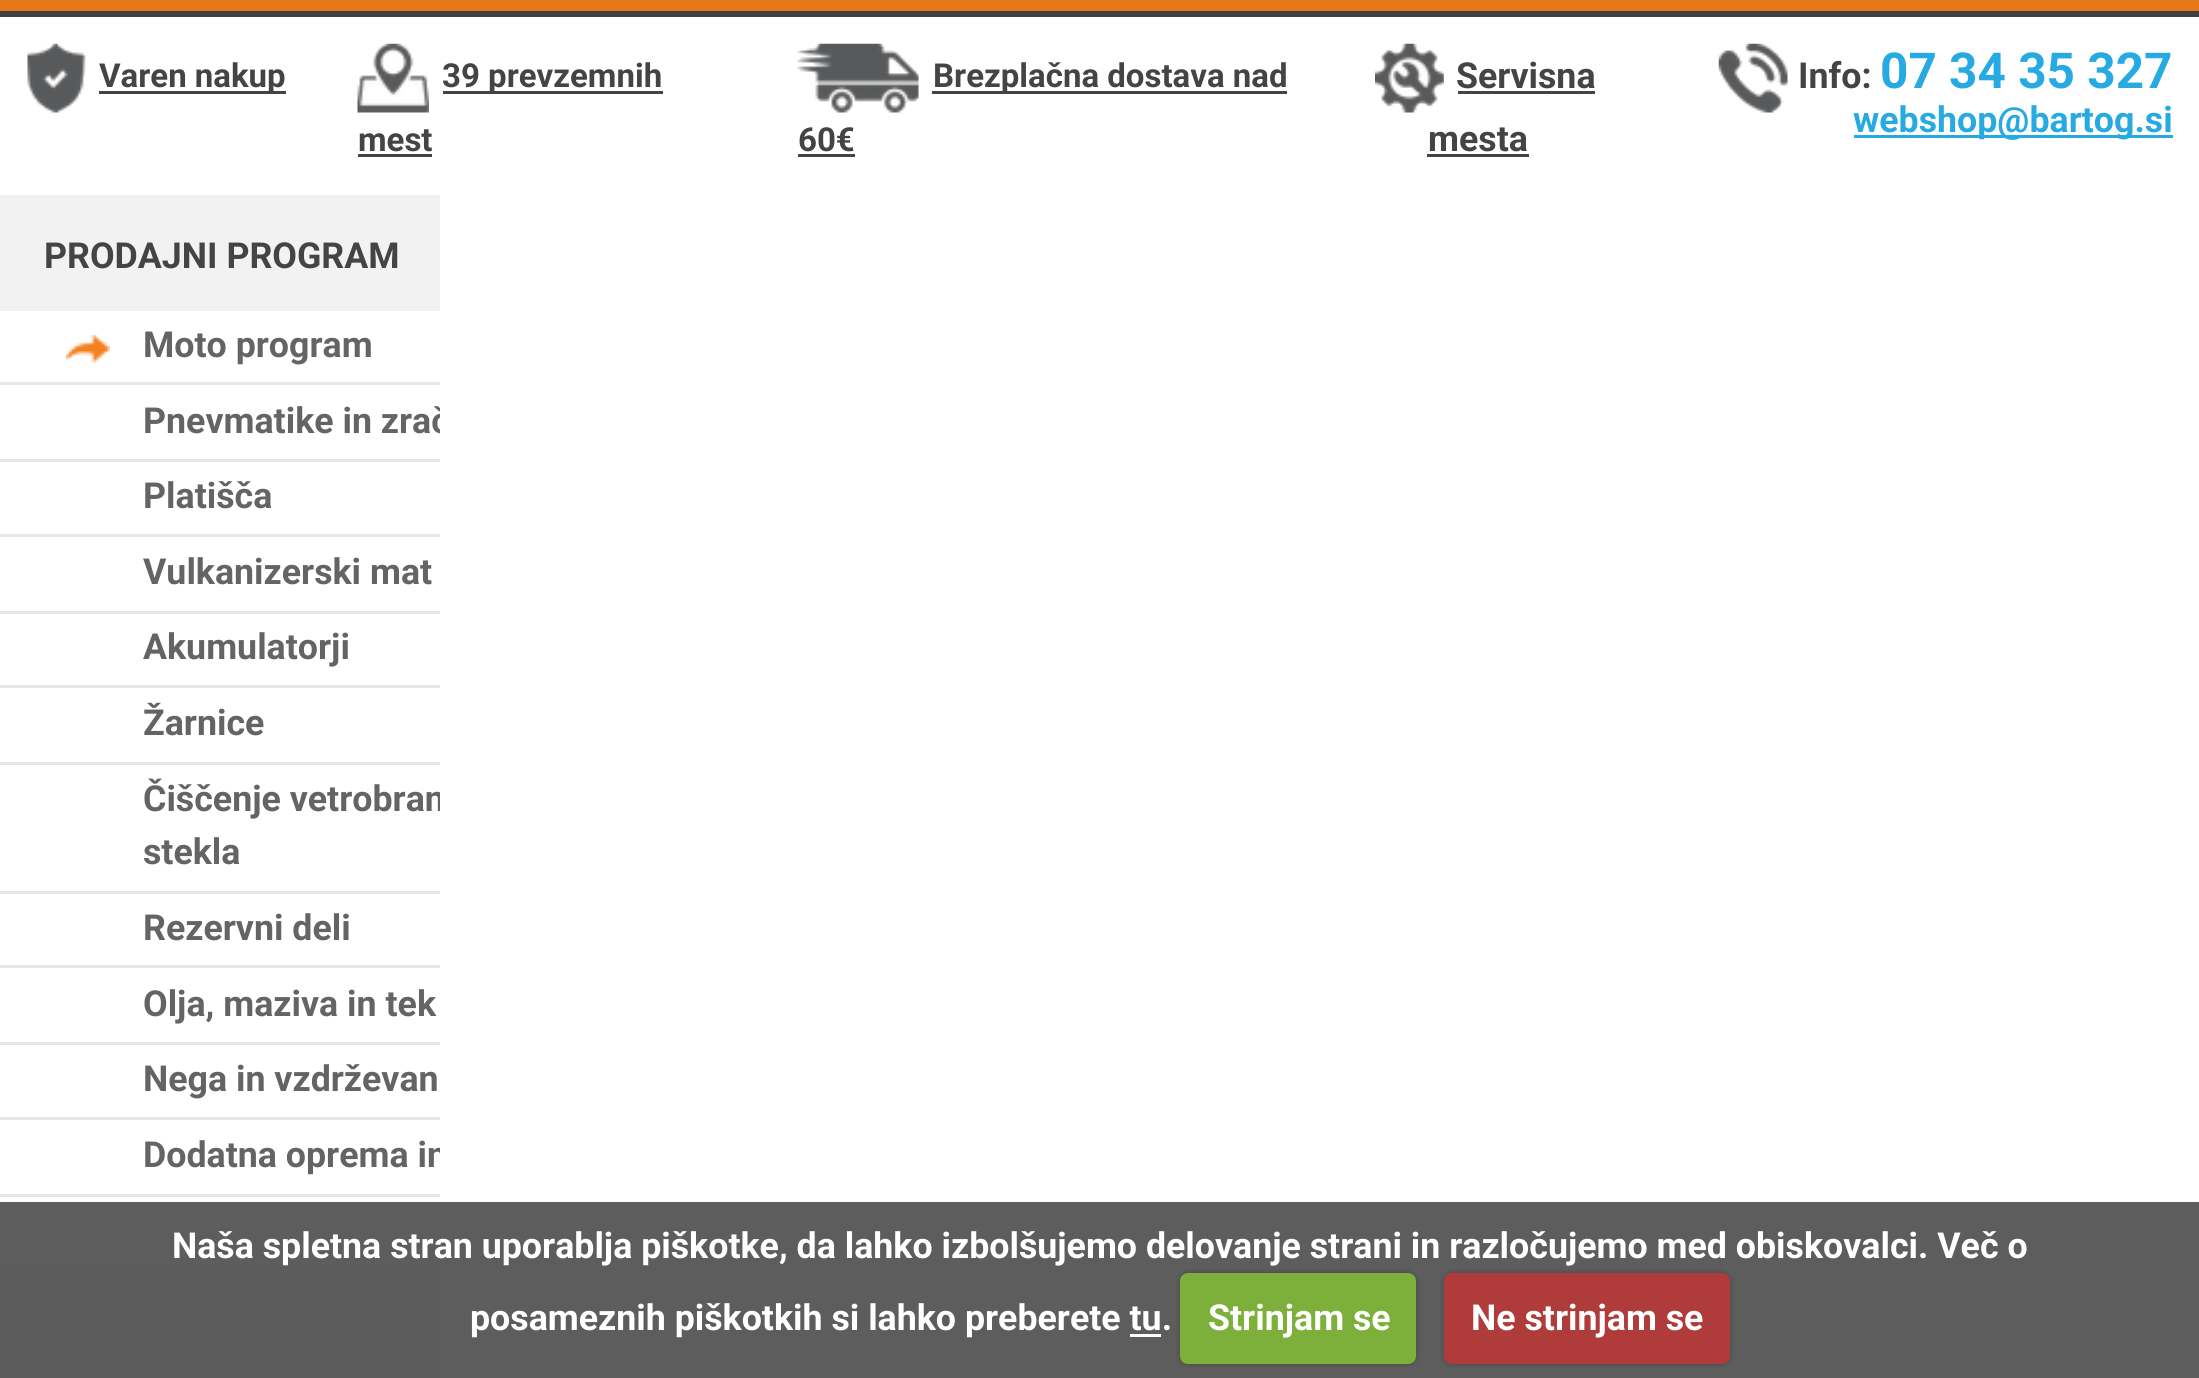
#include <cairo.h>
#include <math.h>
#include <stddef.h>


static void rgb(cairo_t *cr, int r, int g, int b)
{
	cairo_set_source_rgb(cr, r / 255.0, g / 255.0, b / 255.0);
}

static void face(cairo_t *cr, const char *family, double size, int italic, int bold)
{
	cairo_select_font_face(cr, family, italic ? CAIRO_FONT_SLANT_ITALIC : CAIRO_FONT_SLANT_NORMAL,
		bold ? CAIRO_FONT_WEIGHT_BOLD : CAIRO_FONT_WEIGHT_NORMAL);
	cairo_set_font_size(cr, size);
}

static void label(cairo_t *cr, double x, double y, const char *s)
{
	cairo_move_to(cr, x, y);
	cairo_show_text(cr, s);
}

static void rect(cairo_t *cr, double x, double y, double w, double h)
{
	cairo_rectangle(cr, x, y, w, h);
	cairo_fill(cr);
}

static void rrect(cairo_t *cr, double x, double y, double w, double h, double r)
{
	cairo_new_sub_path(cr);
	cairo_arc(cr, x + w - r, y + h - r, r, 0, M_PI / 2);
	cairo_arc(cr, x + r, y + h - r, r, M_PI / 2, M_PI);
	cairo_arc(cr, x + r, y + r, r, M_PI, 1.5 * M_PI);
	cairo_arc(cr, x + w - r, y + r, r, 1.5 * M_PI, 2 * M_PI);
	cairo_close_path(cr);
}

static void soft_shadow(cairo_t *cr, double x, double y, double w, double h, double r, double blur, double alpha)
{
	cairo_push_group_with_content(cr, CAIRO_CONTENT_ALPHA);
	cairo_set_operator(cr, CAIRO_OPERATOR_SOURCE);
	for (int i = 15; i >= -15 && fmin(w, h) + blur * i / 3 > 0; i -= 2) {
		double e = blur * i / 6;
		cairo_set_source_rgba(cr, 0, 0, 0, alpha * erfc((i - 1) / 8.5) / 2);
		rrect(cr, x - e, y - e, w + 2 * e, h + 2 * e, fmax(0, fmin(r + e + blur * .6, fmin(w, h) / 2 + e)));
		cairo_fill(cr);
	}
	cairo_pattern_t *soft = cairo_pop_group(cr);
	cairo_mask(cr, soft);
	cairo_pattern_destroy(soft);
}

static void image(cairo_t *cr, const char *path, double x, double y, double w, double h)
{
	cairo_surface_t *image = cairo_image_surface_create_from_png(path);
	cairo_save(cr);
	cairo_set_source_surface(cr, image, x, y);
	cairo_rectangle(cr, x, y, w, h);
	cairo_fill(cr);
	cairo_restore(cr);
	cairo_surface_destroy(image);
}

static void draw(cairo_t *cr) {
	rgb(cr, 255, 255, 255);
	cairo_paint(cr);
	rgb(cr, 230, 120, 23);
	rect(cr, 0, 0, 2199, 11);
	rgb(cr, 65, 65, 67);
	rect(cr, 0, 11, 2199, 6);
	image(cr, "image0.png", 27, 43, 59, 70);
	rgb(cr, 68, 68, 68);
	rect(cr, 99, 91, 187, 3);
	face(cr, "Roboto", 33, 0, 1);
	label(cr, 99, 87, "Varen nakup");
	image(cr, "image1.png", 357, 43, 72, 70);
	rect(cr, 443, 91, 220, 3);
	label(cr, 442, 87, "39 prevzemnih");
	label(cr, 358, 151, "mest");
	rect(cr, 358, 154, 74, 3);
	image(cr, "image2.png", 797, 43, 122, 70);
	rect(cr, 932, 91, 355, 3);
	label(cr, 933, 87, "Brezplačna dostava nad");
	label(cr, 798, 151, "60€");
	rect(cr, 798, 154, 57, 3);
	image(cr, "image3.png", 1375, 43, 69, 70);
	face(cr, "Roboto", 35.75, 0, 1);
	label(cr, 1456, 88, "Servisna");
	rect(cr, 1458, 91, 137, 3);
	label(cr, 1428, 151, "mesta");
	rect(cr, 1427, 154, 102, 3);
	image(cr, "image4.png", 1718, 43, 70, 70);
	label(cr, 1798, 88, "Info:");
	face(cr, "Roboto", 49.5, 0, 1);
	rgb(cr, 39, 170, 226);
	label(cr, 1880, 88, "07 34 35 327");
	rect(cr, 1854, 135, 319, 3);
	face(cr, "Roboto", 35.75, 0, 1);
	label(cr, 1853, 132, "webshop@bartog.si");
	rgb(cr, 242, 242, 242);
	rect(cr, 0, 195, 440, 116);
	rgb(cr, 68, 68, 68);
	label(cr, 44, 268, "PRODAJNI PROGRAM");
	image(cr, "image5.png", 66, 335, 44, 28);
	rgb(cr, 230, 231, 232);
	rect(cr, 0, 382, 440, 3);
	rgb(cr, 100, 100, 100);
	label(cr, 143, 357, "Moto program");
	rgb(cr, 230, 231, 232);
	rect(cr, 0, 459, 440, 3);
	cairo_save(cr);
	cairo_rectangle(cr, 0, 388, 440, 71);
	cairo_clip(cr);
	rgb(cr, 100, 100, 100);
	label(cr, 143, 433, "Pnevmatike in zrač");
	cairo_restore(cr);
	rect(cr, 0, 534, 440, 3);
	rgb(cr, 100, 100, 100);
	label(cr, 143, 508, "Platišča");
	rgb(cr, 230, 231, 232);
	rect(cr, 0, 611, 440, 3);
	rgb(cr, 100, 100, 100);
	label(cr, 143, 584, "Vulkanizerski mat");
	rgb(cr, 230, 231, 232);
	rect(cr, 0, 685, 440, 3);
	rgb(cr, 100, 100, 100);
	label(cr, 143, 659, "Akumulatorji");
	rgb(cr, 230, 231, 232);
	rect(cr, 0, 762, 440, 3);
	rgb(cr, 100, 100, 100);
	label(cr, 143, 735, "Žarnice");
	rgb(cr, 230, 231, 232);
	rect(cr, 0, 891, 440, 3);
	cairo_save(cr);
	cairo_rectangle(cr, 0, 767, 440, 124);
	cairo_clip(cr);
	rgb(cr, 100, 100, 100);
	label(cr, 143, 811, "Čiščenje vetrobran");
	cairo_restore(cr);
	rgb(cr, 100, 100, 100);
	label(cr, 143, 864, "stekla");
	rgb(cr, 230, 231, 232);
	rect(cr, 0, 965, 440, 3);
	rgb(cr, 100, 100, 100);
	label(cr, 143, 940, "Rezervni deli");
	rgb(cr, 230, 231, 232);
	rect(cr, 0, 1042, 440, 3);
	rgb(cr, 100, 100, 100);
	label(cr, 143, 1016, "Olja, maziva in tek");
	rgb(cr, 230, 231, 232);
	rect(cr, 0, 1117, 440, 3);
	rgb(cr, 100, 100, 100);
	label(cr, 143, 1091, "Nega in vzdrževan");
	rgb(cr, 230, 231, 232);
	rect(cr, 0, 1194, 440, 3);
	cairo_save(cr);
	cairo_rectangle(cr, 0, 1122, 440, 72);
	cairo_clip(cr);
	rgb(cr, 100, 100, 100);
	label(cr, 143, 1167, "Dodatna oprema in");
	cairo_restore(cr);
	rgb(cr, 242, 242, 242);
	rect(cr, 0, 1265, 440, 113);
	cairo_set_source_rgba(cr, 0.337, 0.337, 0.337, 0.95);
	rect(cr, 0, 1202, 2199, 176);
	rgb(cr, 255, 255, 255);
	label(cr, 172, 1258, "Naša spletna stran uporablja piškotke, da lahko izbolšujemo delovanje strani in razločujemo med obiskovalci. Več o");
	label(cr, 470, 1330, "posameznih piškotkih si lahko preberete tu.");
	rgb(cr, 0, 0, 0);
	soft_shadow(cr, 1180, 1273, 236, 91, 8, 3, 0.25);
	rgb(cr, 125, 175, 59);
	rrect(cr, 1180, 1273, 236, 91, 8);
	cairo_fill(cr);
	rgb(cr, 255, 255, 255);
	label(cr, 1208, 1330, "Strinjam se");
	rgb(cr, 0, 0, 0);
	soft_shadow(cr, 1444, 1273, 286, 91, 8, 3, 0.25);
	rgb(cr, 175, 59, 59);
	rrect(cr, 1444, 1273, 286, 91, 8);
	cairo_fill(cr);
	rgb(cr, 255, 255, 255);
	label(cr, 1471, 1330, "Ne strinjam se");
	rect(cr, 1130, 1334, 31, 3);
}

int main(void) {
	cairo_surface_t *surface = cairo_image_surface_create(CAIRO_FORMAT_RGB24, 2199, 1378);
	cairo_t *cr = cairo_create(surface);
	cairo_font_options_t *options = cairo_font_options_create();
	cairo_font_options_set_hint_metrics(options, CAIRO_HINT_METRICS_OFF);
	cairo_font_options_set_hint_style(options, CAIRO_HINT_STYLE_NONE);
	cairo_set_font_options(cr, options);
	cairo_set_miter_limit(cr, 4);
	draw(cr);
	cairo_surface_write_to_png(surface, "render.png");
	cairo_font_options_destroy(options);
	cairo_destroy(cr);
	cairo_surface_destroy(surface);
	return 0;
}
